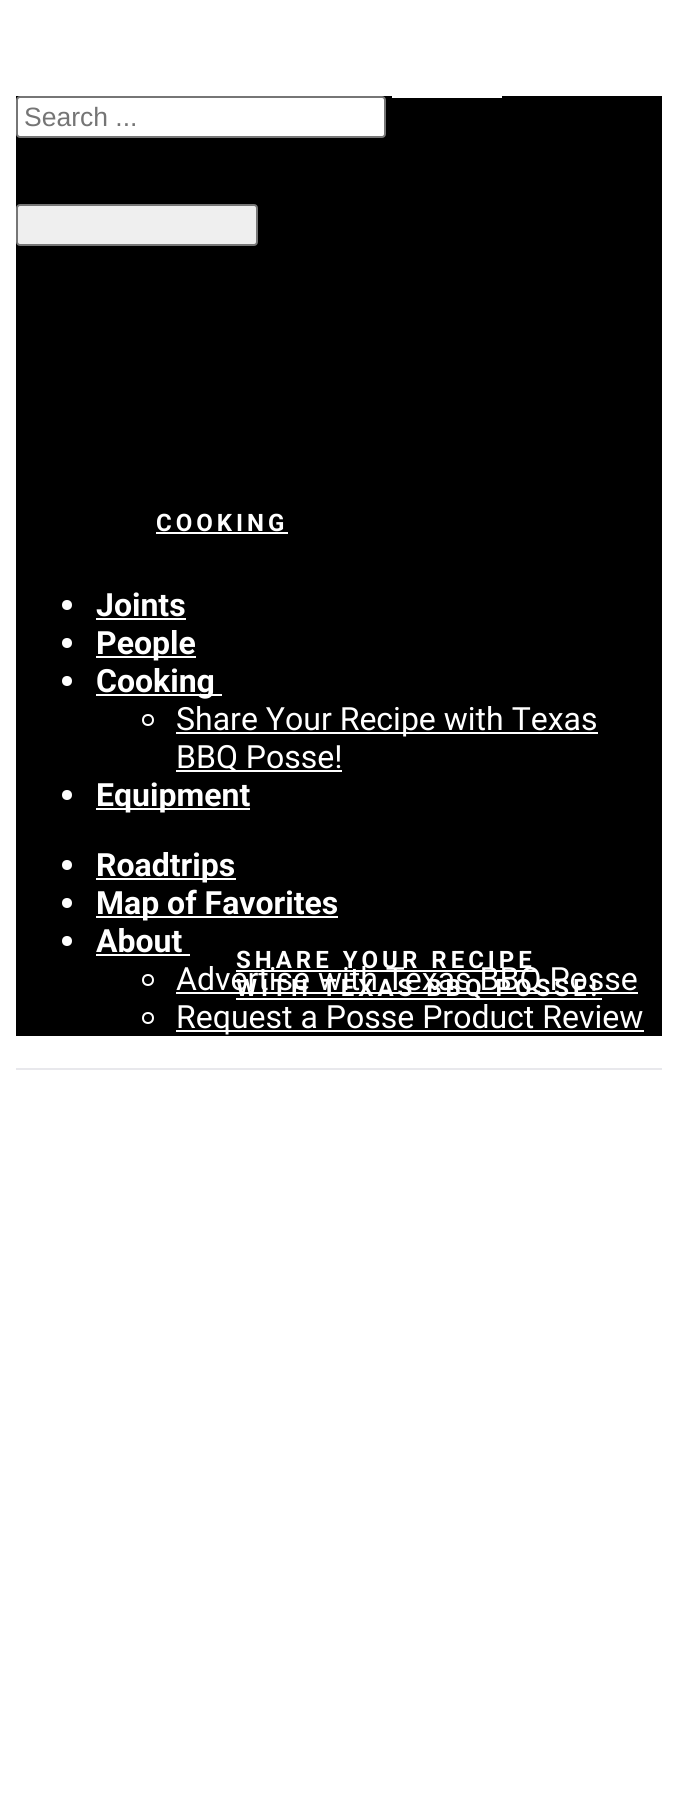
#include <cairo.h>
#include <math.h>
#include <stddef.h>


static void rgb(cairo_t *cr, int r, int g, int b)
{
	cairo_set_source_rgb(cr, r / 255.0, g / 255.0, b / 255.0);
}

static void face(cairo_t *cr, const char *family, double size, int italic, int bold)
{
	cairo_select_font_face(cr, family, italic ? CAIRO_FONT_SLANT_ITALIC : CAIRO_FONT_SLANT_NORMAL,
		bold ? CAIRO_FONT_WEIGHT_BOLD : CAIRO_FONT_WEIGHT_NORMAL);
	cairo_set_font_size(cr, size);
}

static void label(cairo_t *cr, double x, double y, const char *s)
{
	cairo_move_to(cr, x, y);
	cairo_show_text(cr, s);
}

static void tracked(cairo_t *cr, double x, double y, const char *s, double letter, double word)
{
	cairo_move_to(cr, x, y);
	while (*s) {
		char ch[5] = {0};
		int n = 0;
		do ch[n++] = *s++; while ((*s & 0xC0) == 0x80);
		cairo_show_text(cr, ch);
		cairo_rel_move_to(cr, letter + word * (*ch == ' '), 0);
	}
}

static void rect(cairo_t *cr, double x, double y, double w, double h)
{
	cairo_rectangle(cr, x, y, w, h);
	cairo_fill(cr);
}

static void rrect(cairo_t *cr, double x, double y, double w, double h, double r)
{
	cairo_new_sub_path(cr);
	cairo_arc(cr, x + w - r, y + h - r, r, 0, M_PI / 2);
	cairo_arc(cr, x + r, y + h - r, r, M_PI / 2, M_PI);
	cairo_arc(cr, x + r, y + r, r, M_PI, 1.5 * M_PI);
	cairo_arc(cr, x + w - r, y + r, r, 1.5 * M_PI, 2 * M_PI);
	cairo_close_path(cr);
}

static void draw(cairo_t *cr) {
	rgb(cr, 255, 255, 255);
	cairo_paint(cr);
	rgb(cr, 232, 232, 236);
	rect(cr, 16, 1068, 646, 2);
	rgb(cr, 0, 0, 0);
	rect(cr, 16, 96, 646, 940);
	rgb(cr, 255, 255, 255);
	rrect(cr, 17, 97, 368, 40, 3);
	cairo_fill_preserve(cr);
	rgb(cr, 118, 118, 118);
	cairo_stroke(cr);
	face(cr, "Liberation Sans", 26.5, 0, 0);
	rgb(cr, 117, 117, 117);
	label(cr, 24, 126, "Search ...");
	rgb(cr, 239, 239, 239);
	rrect(cr, 17, 205, 240, 40, 3);
	cairo_fill_preserve(cr);
	rgb(cr, 118, 118, 118);
	cairo_stroke(cr);
	rgb(cr, 255, 255, 255);
	cairo_arc(cr, 67, 605, 5, 0, 2 * M_PI);
	cairo_fill(cr);
	face(cr, "Roboto", 32, 0, 1);
	label(cr, 96, 616, "Joints");
	rect(cr, 96, 618, 90, 2);
	cairo_new_path(cr);
	cairo_arc(cr, 67, 643, 5, 0, 2 * M_PI);
	cairo_fill(cr);
	rect(cr, 96, 656, 100, 2);
	label(cr, 96, 654, "People");
	cairo_new_path(cr);
	cairo_arc(cr, 67, 681, 5, 0, 2 * M_PI);
	cairo_fill(cr);
	rect(cr, 96, 694, 126, 2);
	label(cr, 96, 692, "Cooking");
	cairo_new_path(cr);
	cairo_arc(cr, 148, 720, 5, 0, 2 * M_PI);
	cairo_stroke(cr);
	rect(cr, 176, 732, 422, 2);
	face(cr, "Roboto", 32, 0, 0);
	label(cr, 176, 730, "Share Your Recipe with Texas");
	rect(cr, 176, 770, 166, 2);
	label(cr, 176, 768, "BBQ Posse!");
	cairo_new_path(cr);
	cairo_arc(cr, 67, 795, 5, 0, 2 * M_PI);
	cairo_fill(cr);
	rect(cr, 96, 808, 154, 2);
	face(cr, "Roboto", 32, 0, 1);
	label(cr, 96, 806, "Equipment");
	cairo_new_path(cr);
	cairo_arc(cr, 67, 865, 5, 0, 2 * M_PI);
	cairo_fill(cr);
	rect(cr, 96, 878, 140, 2);
	label(cr, 96, 876, "Roadtrips");
	cairo_new_path(cr);
	cairo_arc(cr, 67, 903, 5, 0, 2 * M_PI);
	cairo_fill(cr);
	rect(cr, 96, 916, 242, 2);
	label(cr, 96, 914, "Map of Favorites");
	cairo_new_path(cr);
	cairo_arc(cr, 67, 941, 5, 0, 2 * M_PI);
	cairo_fill(cr);
	label(cr, 96, 952, "About");
	rect(cr, 96, 954, 94, 2);
	cairo_new_path(cr);
	cairo_arc(cr, 148, 980, 5, 0, 2 * M_PI);
	cairo_stroke(cr);
	rect(cr, 176, 992, 462, 2);
	rect(cr, 236, 970, 300, 2);
	rect(cr, 236, 998, 366, 2);
	face(cr, "Roboto", 24, 0, 1);
	tracked(cr, 236, 996, "WITH TEXAS BBQ POSSE!", 4, 0);
	face(cr, "Roboto", 32, 0, 0);
	label(cr, 176, 990, "Advertise with Texas BBQ Posse");
	cairo_new_path(cr);
	cairo_arc(cr, 148, 1018, 5, 0, 2 * M_PI);
	cairo_stroke(cr);
	rect(cr, 176, 1030, 468, 2);
	label(cr, 176, 1028, "Request a Posse Product Review");
	rect(cr, 392, 96, 110, 2);
	face(cr, "Roboto", 24, 0, 1);
	tracked(cr, 156, 531, "COOKING", 4, 0);
	rect(cr, 156, 532, 132, 2);
	tracked(cr, 236, 968, "SHARE YOUR RECIPE", 4, 0);
}

int main(void) {
	cairo_surface_t *surface = cairo_image_surface_create(CAIRO_FORMAT_RGB24, 677, 1793);
	cairo_t *cr = cairo_create(surface);
	cairo_font_options_t *options = cairo_font_options_create();
	cairo_font_options_set_hint_metrics(options, CAIRO_HINT_METRICS_OFF);
	cairo_font_options_set_hint_style(options, CAIRO_HINT_STYLE_NONE);
	cairo_set_font_options(cr, options);
	cairo_set_miter_limit(cr, 4);
	draw(cr);
	cairo_surface_write_to_png(surface, "render.png");
	cairo_font_options_destroy(options);
	cairo_destroy(cr);
	cairo_surface_destroy(surface);
	return 0;
}
